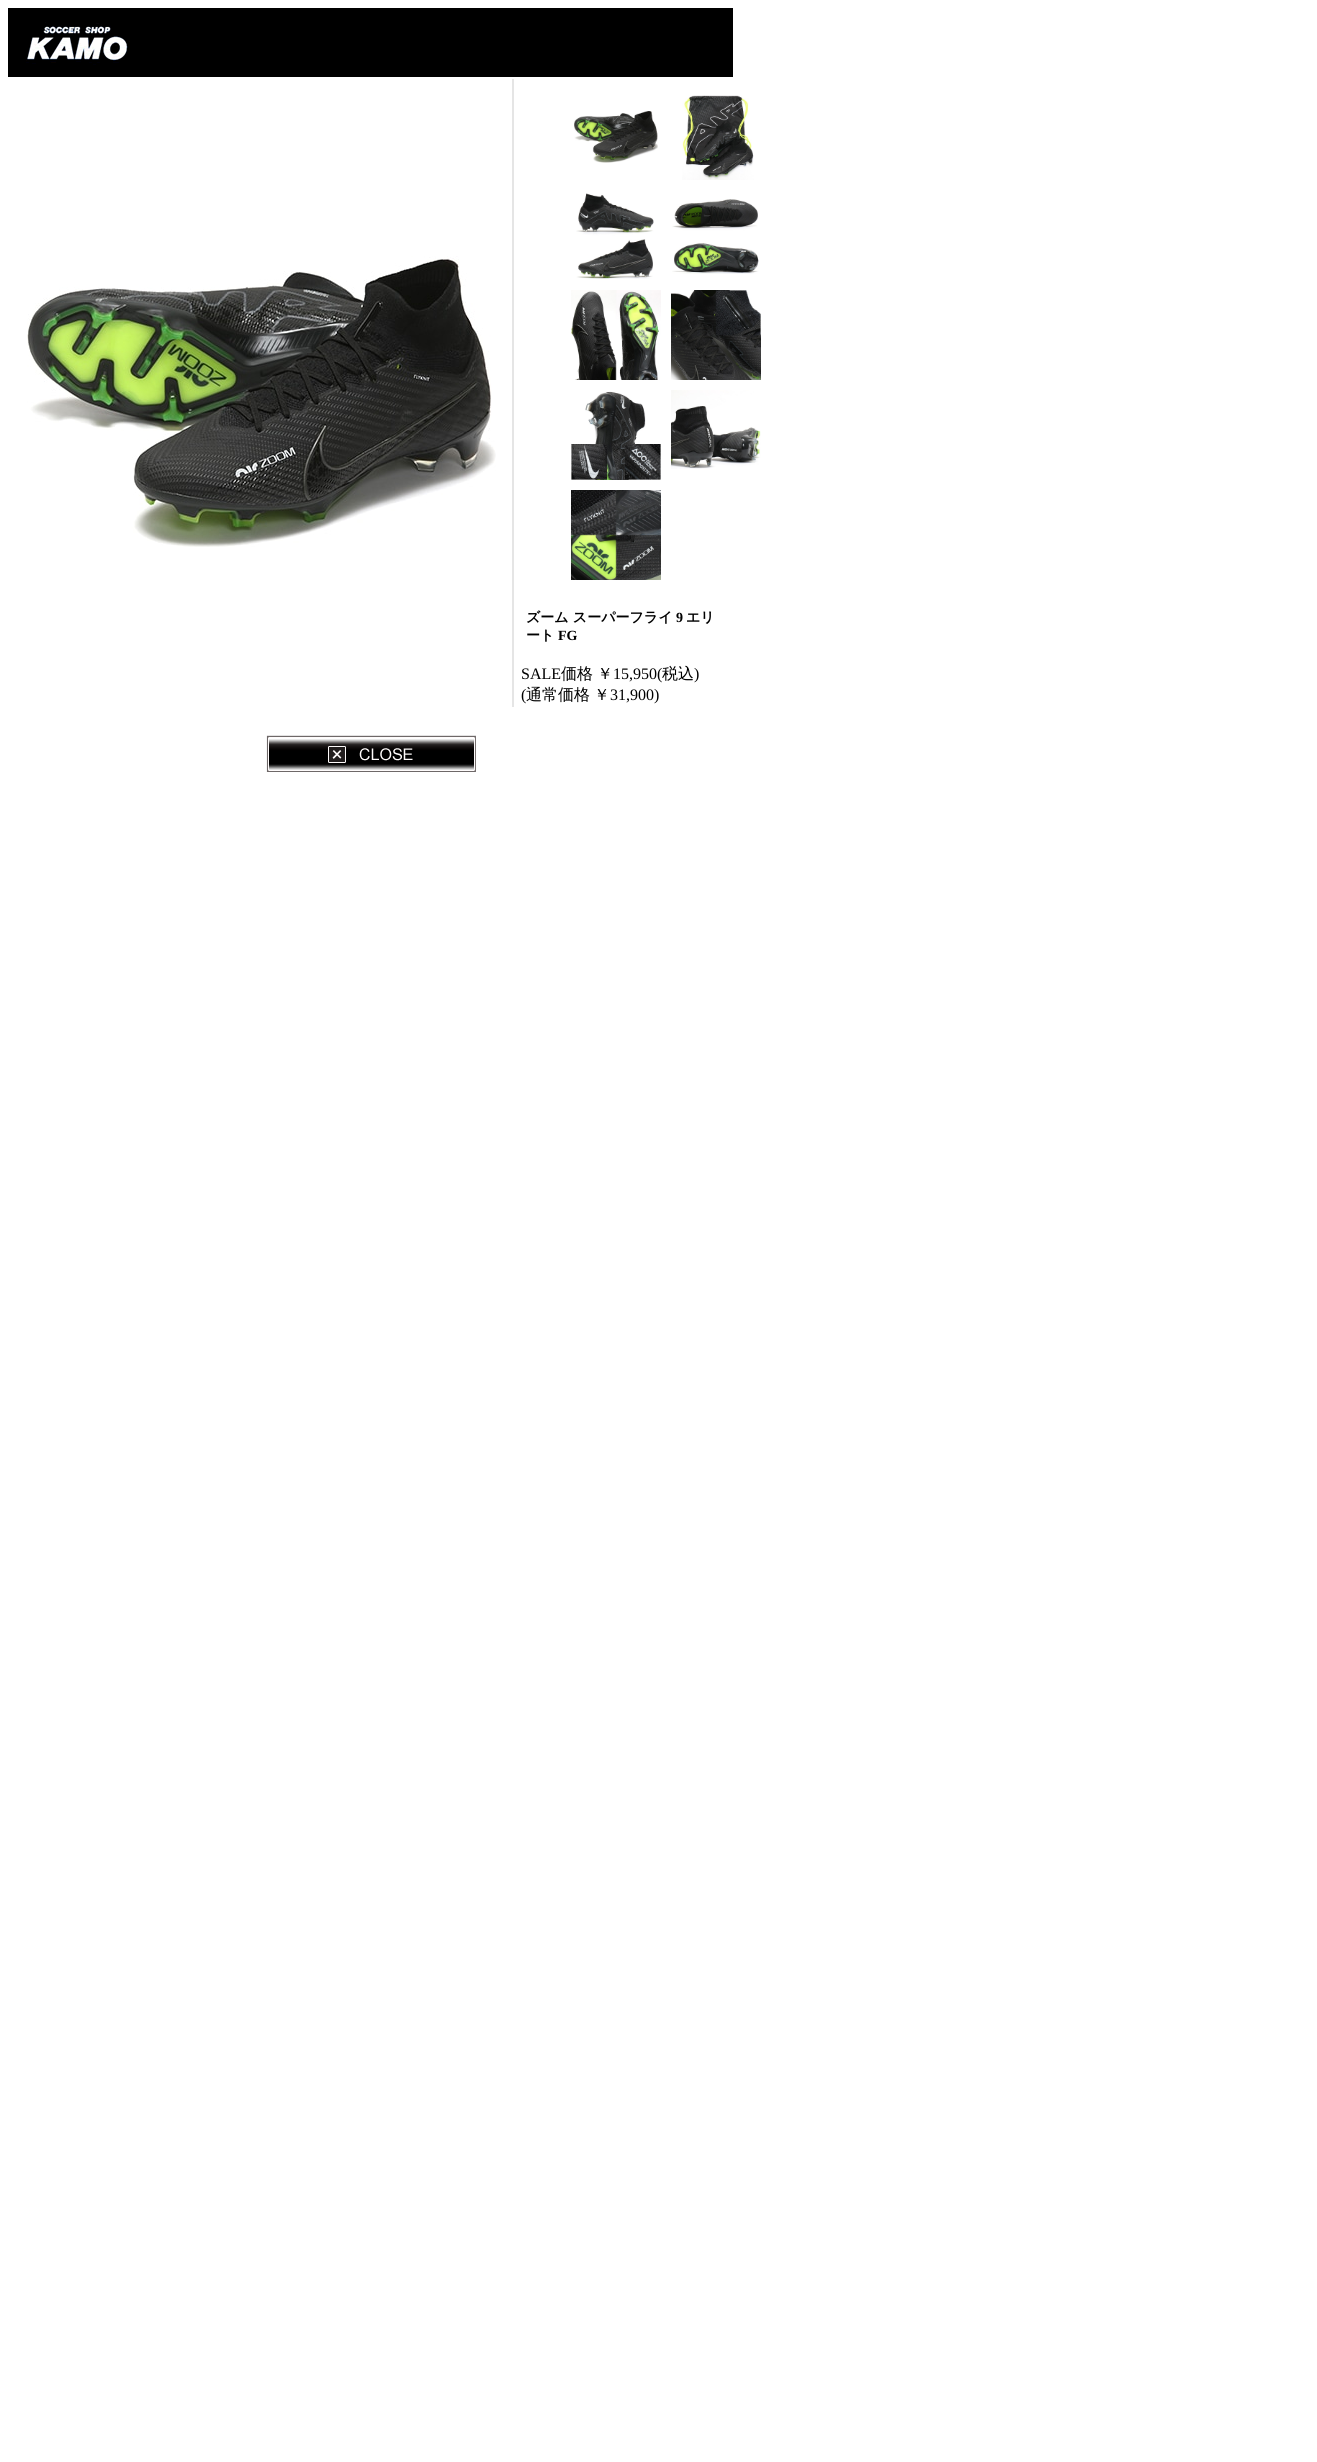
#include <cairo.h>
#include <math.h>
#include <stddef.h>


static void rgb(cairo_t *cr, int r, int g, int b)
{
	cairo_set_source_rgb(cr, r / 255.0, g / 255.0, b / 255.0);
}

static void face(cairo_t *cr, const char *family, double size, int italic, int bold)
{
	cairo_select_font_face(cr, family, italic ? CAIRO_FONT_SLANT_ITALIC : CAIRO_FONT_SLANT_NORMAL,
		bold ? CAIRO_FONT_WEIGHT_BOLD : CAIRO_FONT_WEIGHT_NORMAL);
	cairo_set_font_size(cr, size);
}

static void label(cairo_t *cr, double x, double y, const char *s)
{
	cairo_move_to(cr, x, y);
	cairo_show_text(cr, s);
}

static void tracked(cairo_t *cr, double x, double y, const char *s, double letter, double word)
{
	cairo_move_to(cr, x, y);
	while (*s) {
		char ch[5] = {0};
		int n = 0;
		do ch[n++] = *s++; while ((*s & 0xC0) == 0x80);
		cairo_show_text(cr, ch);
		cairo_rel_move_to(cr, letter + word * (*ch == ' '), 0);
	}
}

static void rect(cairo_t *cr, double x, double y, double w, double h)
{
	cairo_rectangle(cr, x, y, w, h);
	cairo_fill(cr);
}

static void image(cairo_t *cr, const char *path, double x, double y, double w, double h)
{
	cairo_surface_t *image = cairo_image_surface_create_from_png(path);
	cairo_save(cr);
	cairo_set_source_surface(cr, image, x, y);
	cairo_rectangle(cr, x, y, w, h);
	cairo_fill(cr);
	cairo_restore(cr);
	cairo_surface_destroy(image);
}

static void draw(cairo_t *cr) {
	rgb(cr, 255, 255, 255);
	cairo_paint(cr);
	rgb(cr, 0, 0, 0);
	rect(cr, 8, 8, 725, 3);
	image(cr, "image0.png", 8, 11, 725, 66);
	rgb(cr, 229, 229, 229);
	rect(cr, 512, 79, 2, 628);
	image(cr, "image1.png", 27, 256, 469, 291);
	image(cr, "image2.png", 574, 111, 84, 52);
	image(cr, "image3.png", 682, 95, 72, 85);
	image(cr, "image4.png", 576, 193, 78, 86);
	image(cr, "image5.png", 672, 199, 87, 75);
	image(cr, "image6.png", 571, 290, 90, 90);
	image(cr, "image7.png", 671, 290, 90, 90);
	image(cr, "image8.png", 571, 391, 90, 89);
	image(cr, "image9.png", 671, 390, 90, 79);
	image(cr, "image10.png", 571, 490, 90, 90);
	face(cr, "WenQuanYi Zen Hei", 14, 0, 1);
	rgb(cr, 0, 0, 0);
	label(cr, 526, 622, "ズーム スーパーフライ");
	face(cr, "Liberation Serif", 14, 0, 1);
	label(cr, 676, 622, "9");
	face(cr, "WenQuanYi Zen Hei", 14, 0, 1);
	label(cr, 686, 622, "エリ");
	label(cr, 526, 640, "ート");
	face(cr, "Liberation Serif", 14, 0, 1);
	label(cr, 558, 640, "FG");
	face(cr, "Liberation Serif", 16, 0, 0);
	label(cr, 521, 679, "SALE");
	face(cr, "WenQuanYi Zen Hei Medium", 16, 0, 0);
	label(cr, 561, 679, "価格");
	label(cr, 597, 679, "￥");
	face(cr, "Liberation Serif", 16, 0, 0);
	label(cr, 613, 679, "15,950(");
	face(cr, "WenQuanYi Zen Hei Medium", 16, 0, 0);
	label(cr, 662, 679, "税込");
	face(cr, "Liberation Serif", 16, 0, 0);
	label(cr, 694, 679, ")");
	label(cr, 521, 700, "(");
	face(cr, "WenQuanYi Zen Hei Medium", 16, 0, 0);
	tracked(cr, 526, 700, "通常価格 ￥", 0, -1);
	face(cr, "Liberation Serif", 16, 0, 0);
	label(cr, 610, 700, "31,900)");
	image(cr, "image11.png", 266, 735, 210, 37);
}

int main(void) {
	cairo_surface_t *surface = cairo_image_surface_create(CAIRO_FORMAT_RGB24, 1317, 2462);
	cairo_t *cr = cairo_create(surface);
	cairo_font_options_t *options = cairo_font_options_create();
	cairo_font_options_set_hint_metrics(options, CAIRO_HINT_METRICS_OFF);
	cairo_font_options_set_hint_style(options, CAIRO_HINT_STYLE_NONE);
	cairo_set_font_options(cr, options);
	cairo_set_miter_limit(cr, 4);
	draw(cr);
	cairo_surface_write_to_png(surface, "render.png");
	cairo_font_options_destroy(options);
	cairo_destroy(cr);
	cairo_surface_destroy(surface);
	return 0;
}
